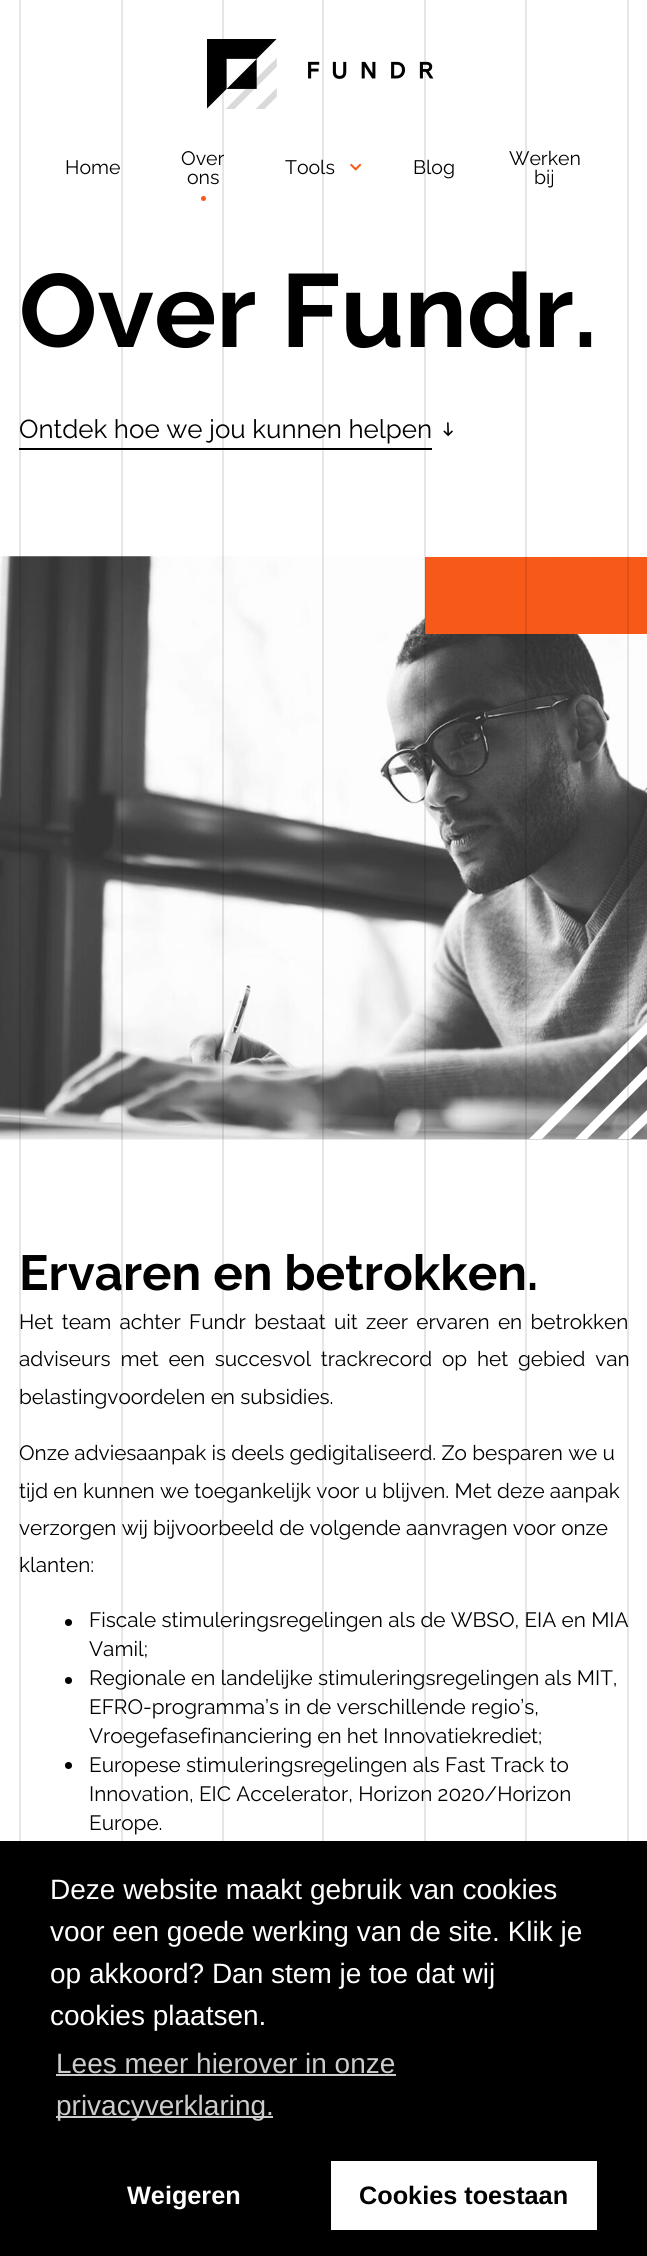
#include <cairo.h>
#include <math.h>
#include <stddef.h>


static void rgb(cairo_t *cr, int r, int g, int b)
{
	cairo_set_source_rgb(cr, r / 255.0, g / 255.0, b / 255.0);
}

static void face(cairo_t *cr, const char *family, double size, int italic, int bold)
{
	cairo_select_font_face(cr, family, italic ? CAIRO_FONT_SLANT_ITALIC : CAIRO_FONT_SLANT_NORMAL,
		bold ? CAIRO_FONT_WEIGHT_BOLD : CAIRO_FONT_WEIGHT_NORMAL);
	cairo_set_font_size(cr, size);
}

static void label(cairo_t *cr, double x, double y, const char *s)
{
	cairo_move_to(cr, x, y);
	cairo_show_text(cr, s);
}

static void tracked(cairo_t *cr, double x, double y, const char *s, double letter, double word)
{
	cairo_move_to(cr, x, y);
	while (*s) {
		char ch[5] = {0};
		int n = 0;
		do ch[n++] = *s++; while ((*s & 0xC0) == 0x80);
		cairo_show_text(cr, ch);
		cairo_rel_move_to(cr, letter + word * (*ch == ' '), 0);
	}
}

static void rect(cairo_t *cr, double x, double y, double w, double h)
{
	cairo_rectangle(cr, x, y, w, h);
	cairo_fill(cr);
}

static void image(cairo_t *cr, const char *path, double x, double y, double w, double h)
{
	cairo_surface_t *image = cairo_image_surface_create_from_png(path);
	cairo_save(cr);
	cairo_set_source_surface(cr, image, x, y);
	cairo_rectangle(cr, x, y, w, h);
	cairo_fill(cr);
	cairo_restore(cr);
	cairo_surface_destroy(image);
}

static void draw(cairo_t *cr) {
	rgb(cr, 255, 255, 255);
	cairo_paint(cr);
	rgb(cr, 0, 0, 0);
	rect(cr, 19, 448, 413, 2);
	image(cr, "image3.png", 0, 556, 647, 584);
	image(cr, "image4.png", 0, 556, 647, 584);
	cairo_set_source_rgba(cr, 0, 0, 0, 0.1);
	rect(cr, 19, 0, 2, 1841);
	rect(cr, 121, 0, 2, 1841);
	rect(cr, 222, 0, 2, 1841);
	rect(cr, 322, 0, 2, 1841);
	rgb(cr, 247, 90, 24);
	rect(cr, 425, 557, 222, 77);
	cairo_set_source_rgba(cr, 0, 0, 0, 0.1);
	rect(cr, 424, 0, 2, 1841);
	rect(cr, 525, 0, 2, 1841);
	cairo_save(cr);
	cairo_rectangle(cr, 529, 1020, 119, 119);
	cairo_clip(cr);
	rgb(cr, 255, 255, 255);
	cairo_new_path(cr);
	cairo_move_to(cr, 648, 1021);
	cairo_line_to(cr, 528, 1140);
	cairo_line_to(cr, 541, 1140);
	cairo_line_to(cr, 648, 1033);
	cairo_close_path(cr);
	cairo_fill(cr);
	cairo_new_path(cr);
	cairo_move_to(cr, 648, 1065);
	cairo_line_to(cr, 574, 1140);
	cairo_line_to(cr, 586, 1140);
	cairo_line_to(cr, 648, 1078);
	cairo_close_path(cr);
	cairo_fill(cr);
	cairo_new_path(cr);
	cairo_move_to(cr, 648.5, 1108.5);
	cairo_line_to(cr, 616.5, 1140);
	cairo_line_to(cr, 629.5, 1140);
	cairo_line_to(cr, 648.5, 1121.5);
	cairo_close_path(cr);
	cairo_fill(cr);
	cairo_restore(cr);
	rect(cr, 627, 0, 2, 1841);
	image(cr, "image0.png", 207, 39, 227, 70);
	face(cr, "Raleway", 19.5, 0, 0);
	rgb(cr, 0, 0, 0);
	label(cr, 65, 174, "Home");
	label(cr, 181, 165, "Over");
	label(cr, 187, 184, "ons");
	rgb(cr, 247, 90, 24);
	cairo_new_path(cr);
	cairo_arc(cr, 203.5, 198.5, 2.5, 0, 2 * M_PI);
	cairo_fill(cr);
	rgb(cr, 0, 0, 0);
	label(cr, 285, 174, "Tools");
	image(cr, "image1.png", 350, 163, 12, 8);
	label(cr, 413, 174, "Blog");
	label(cr, 509, 165, "Werken");
	label(cr, 534, 184, "bij");
	face(cr, "Raleway", 103.5, 0, 1);
	label(cr, 19, 347, "Over Fundr.");
	face(cr, "Raleway", 25.9, 0, 0);
	label(cr, 19, 438, "Ontdek hoe we jou kunnen helpen");
	image(cr, "image2.png", 443, 422, 10, 15);
	face(cr, "Raleway", 49.25, 0, 1);
	label(cr, 19, 1290, "Ervaren en betrokken.");
	face(cr, "Raleway", 20.75, 0, 0);
	tracked(cr, 19, 1329, "Het team achter Fundr bestaat uit zeer ervaren en betrokken", 0, 3);
	tracked(cr, 19, 1366, "adviseurs met een succesvol trackrecord op het gebied van", 0, 4.5);
	label(cr, 19, 1404, "belastingvoordelen en subsidies.");
	label(cr, 19, 1460, "Onze adviesaanpak is deels gedigitaliseerd. Zo besparen we u");
	label(cr, 19, 1498, "tijd en kunnen we toegankelijk voor u blijven. Met deze aanpak");
	label(cr, 19, 1535, "verzorgen wij bijvoorbeeld de volgende aanvragen voor onze");
	label(cr, 19, 1572, "klanten:");
	cairo_new_path(cr);
	cairo_arc(cr, 68.5, 1622.5, 3.5, 0, 2 * M_PI);
	cairo_fill(cr);
	label(cr, 89, 1627, "Fiscale stimuleringsregelingen als de WBSO, EIA en MIA");
	label(cr, 89, 1656, "Vamil;");
	cairo_new_path(cr);
	cairo_arc(cr, 68.5, 1680.5, 3.5, 0, 2 * M_PI);
	cairo_fill(cr);
	label(cr, 89, 1685, "Regionale en landelijke stimuleringsregelingen als MIT,");
	label(cr, 89, 1714, "EFRO-programma’s in de verschillende regio’s,");
	label(cr, 89, 1743, "Vroegefasefinanciering en het Innovatiekrediet;");
	cairo_new_path(cr);
	cairo_arc(cr, 68.5, 1765.5, 3.5, 0, 2 * M_PI);
	cairo_fill(cr);
	label(cr, 89, 1772, "Europese stimuleringsregelingen als Fast Track to");
	label(cr, 89, 1801, "Innovation, EIC Accelerator, Horizon 2020/Horizon");
	label(cr, 89, 1830, "Europe.");
	rect(cr, 0, 1841, 647, 415);
	face(cr, "Liberation Sans", 28, 0, 0);
	rgb(cr, 255, 255, 255);
	label(cr, 50, 1899, "Deze website maakt gebruik van cookies");
	label(cr, 50, 1941, "voor een goede werking van de site. Klik je");
	label(cr, 50, 1983, "op akkoord? Dan stem je toe dat wij");
	label(cr, 50, 2025, "cookies plaatsen.");
	rgb(cr, 204, 204, 204);
	label(cr, 56, 2073, "Lees meer hierover in onze");
	rect(cr, 56, 2074, 340, 2);
	rect(cr, 56, 2116, 217, 2);
	label(cr, 56, 2115, "privacyverklaring.");
	face(cr, "Liberation Sans", 25.25, 0, 1);
	rgb(cr, 255, 255, 255);
	label(cr, 127, 2204, "Weigeren");
	rect(cr, 331, 2161, 266, 69);
	rgb(cr, 0, 0, 0);
	label(cr, 359, 2204, "Cookies toestaan");
}

int main(void) {
	cairo_surface_t *surface = cairo_image_surface_create(CAIRO_FORMAT_RGB24, 647, 2256);
	cairo_t *cr = cairo_create(surface);
	cairo_font_options_t *options = cairo_font_options_create();
	cairo_font_options_set_hint_metrics(options, CAIRO_HINT_METRICS_OFF);
	cairo_font_options_set_hint_style(options, CAIRO_HINT_STYLE_NONE);
	cairo_set_font_options(cr, options);
	cairo_set_miter_limit(cr, 4);
	draw(cr);
	cairo_surface_write_to_png(surface, "render.png");
	cairo_font_options_destroy(options);
	cairo_destroy(cr);
	cairo_surface_destroy(surface);
	return 0;
}
